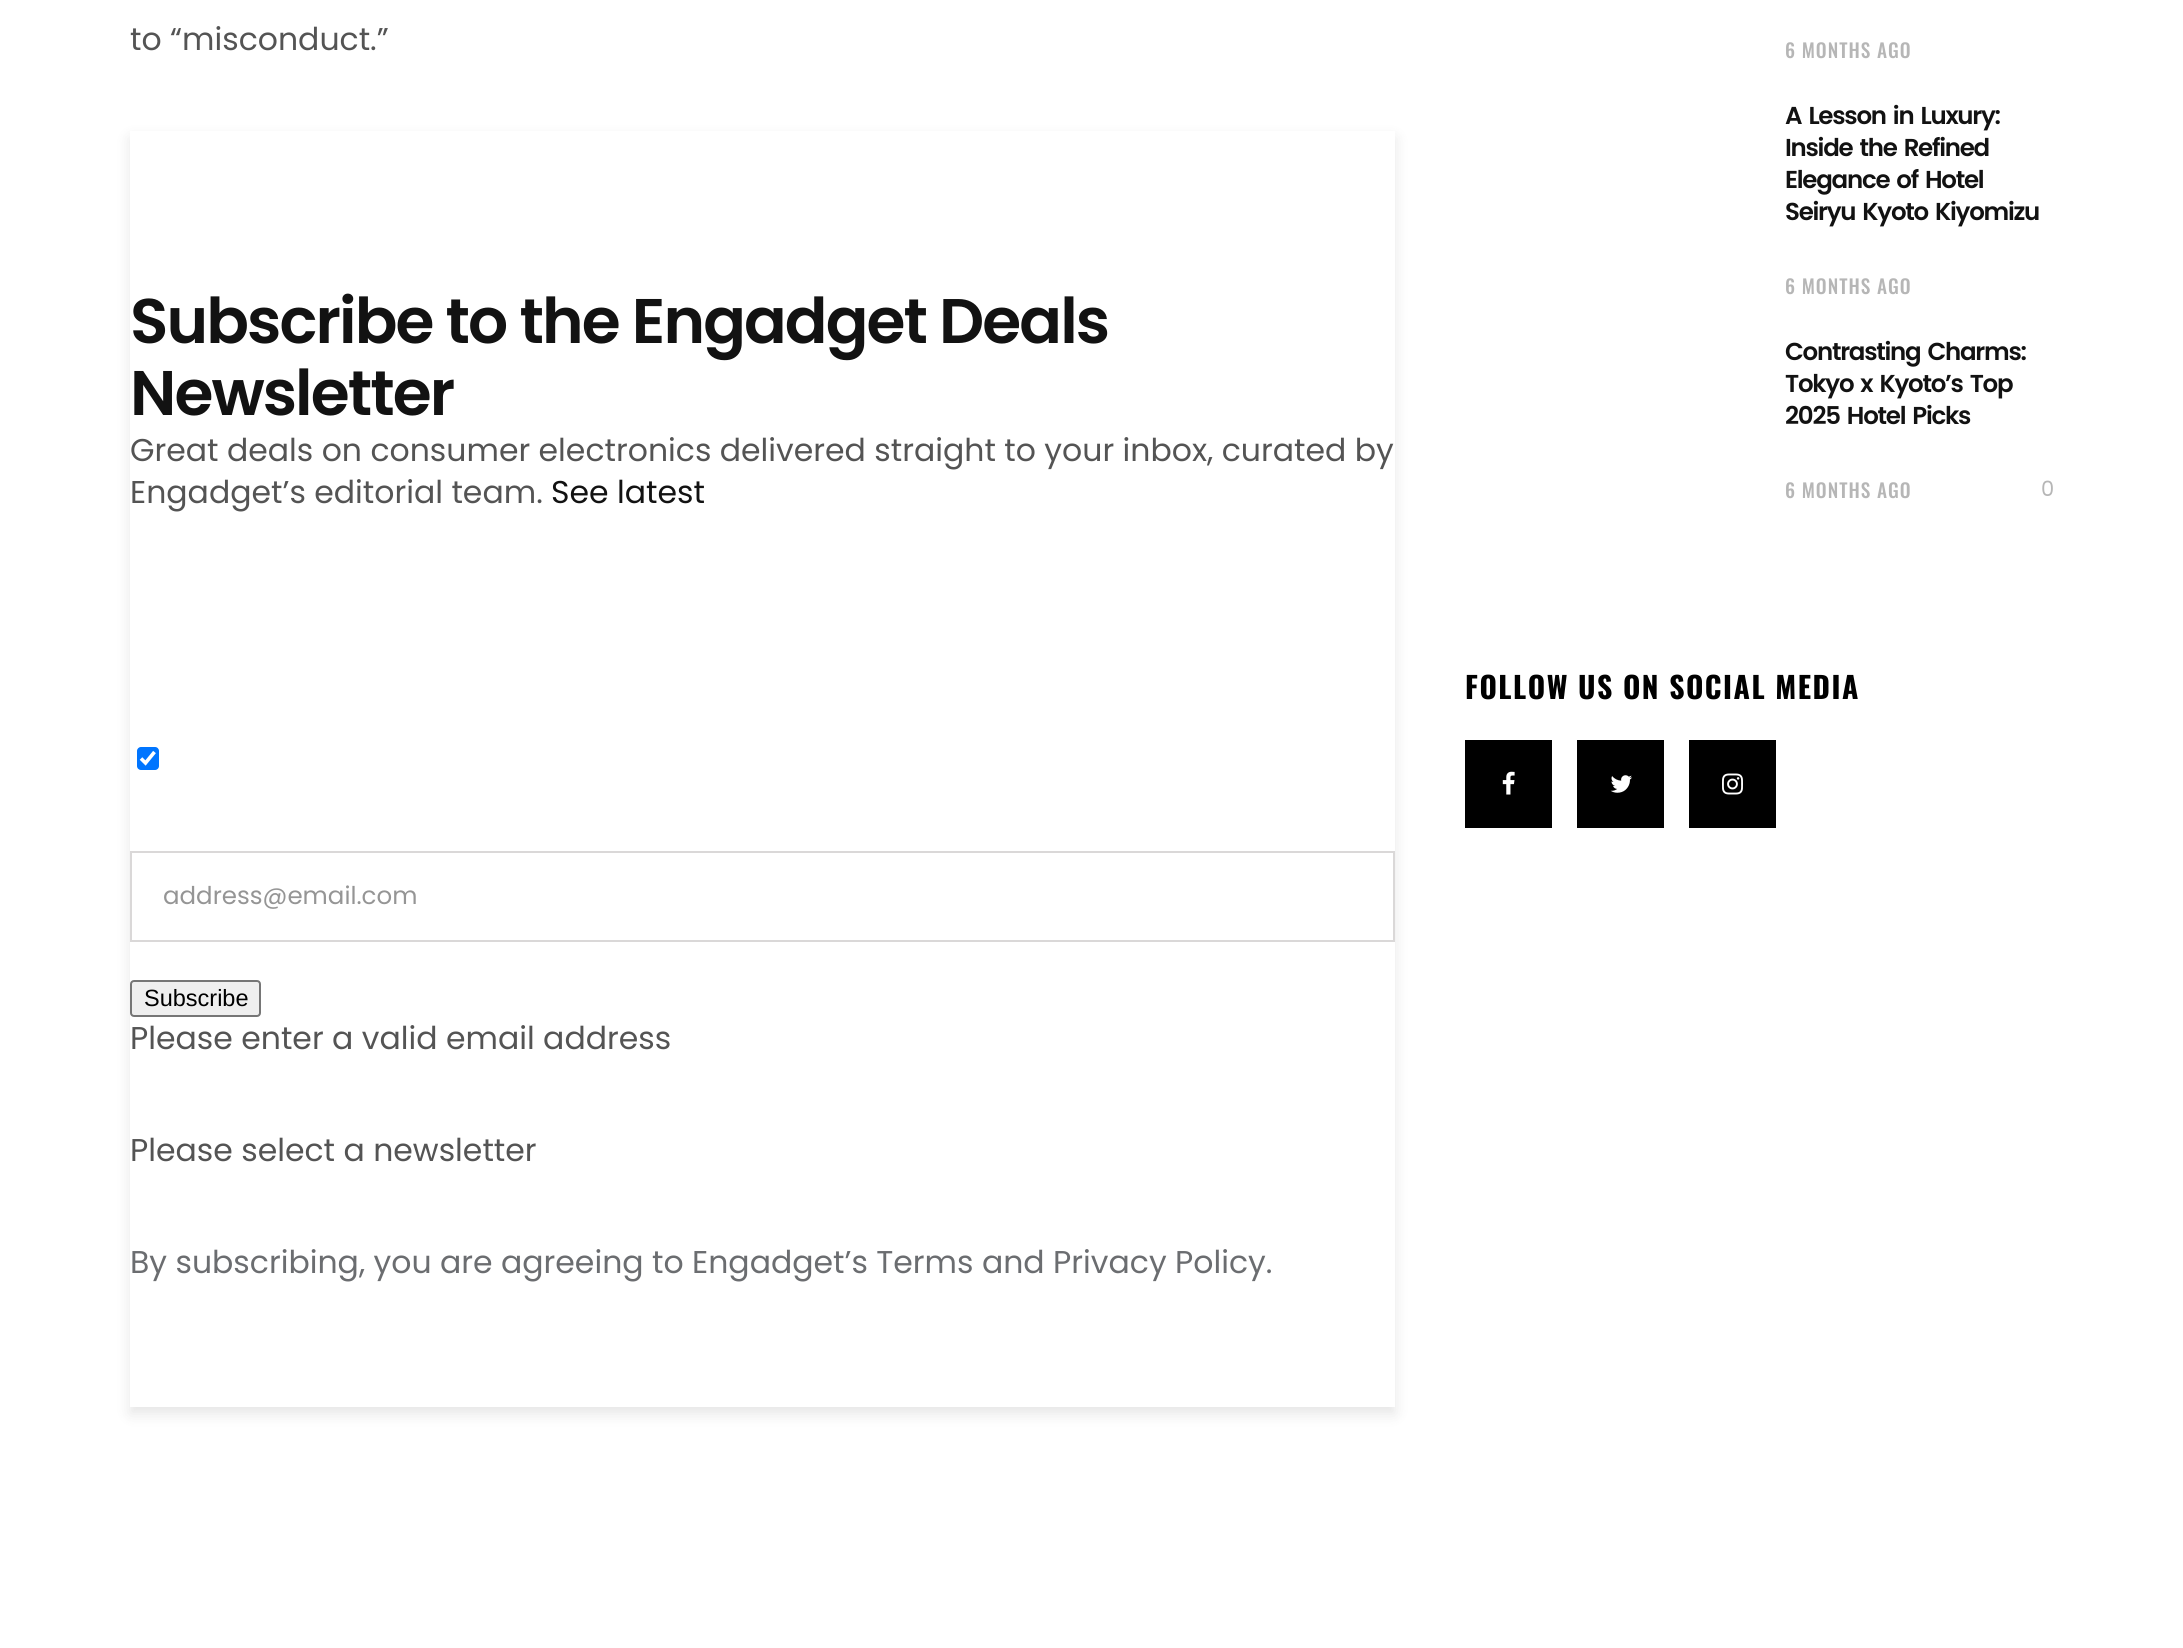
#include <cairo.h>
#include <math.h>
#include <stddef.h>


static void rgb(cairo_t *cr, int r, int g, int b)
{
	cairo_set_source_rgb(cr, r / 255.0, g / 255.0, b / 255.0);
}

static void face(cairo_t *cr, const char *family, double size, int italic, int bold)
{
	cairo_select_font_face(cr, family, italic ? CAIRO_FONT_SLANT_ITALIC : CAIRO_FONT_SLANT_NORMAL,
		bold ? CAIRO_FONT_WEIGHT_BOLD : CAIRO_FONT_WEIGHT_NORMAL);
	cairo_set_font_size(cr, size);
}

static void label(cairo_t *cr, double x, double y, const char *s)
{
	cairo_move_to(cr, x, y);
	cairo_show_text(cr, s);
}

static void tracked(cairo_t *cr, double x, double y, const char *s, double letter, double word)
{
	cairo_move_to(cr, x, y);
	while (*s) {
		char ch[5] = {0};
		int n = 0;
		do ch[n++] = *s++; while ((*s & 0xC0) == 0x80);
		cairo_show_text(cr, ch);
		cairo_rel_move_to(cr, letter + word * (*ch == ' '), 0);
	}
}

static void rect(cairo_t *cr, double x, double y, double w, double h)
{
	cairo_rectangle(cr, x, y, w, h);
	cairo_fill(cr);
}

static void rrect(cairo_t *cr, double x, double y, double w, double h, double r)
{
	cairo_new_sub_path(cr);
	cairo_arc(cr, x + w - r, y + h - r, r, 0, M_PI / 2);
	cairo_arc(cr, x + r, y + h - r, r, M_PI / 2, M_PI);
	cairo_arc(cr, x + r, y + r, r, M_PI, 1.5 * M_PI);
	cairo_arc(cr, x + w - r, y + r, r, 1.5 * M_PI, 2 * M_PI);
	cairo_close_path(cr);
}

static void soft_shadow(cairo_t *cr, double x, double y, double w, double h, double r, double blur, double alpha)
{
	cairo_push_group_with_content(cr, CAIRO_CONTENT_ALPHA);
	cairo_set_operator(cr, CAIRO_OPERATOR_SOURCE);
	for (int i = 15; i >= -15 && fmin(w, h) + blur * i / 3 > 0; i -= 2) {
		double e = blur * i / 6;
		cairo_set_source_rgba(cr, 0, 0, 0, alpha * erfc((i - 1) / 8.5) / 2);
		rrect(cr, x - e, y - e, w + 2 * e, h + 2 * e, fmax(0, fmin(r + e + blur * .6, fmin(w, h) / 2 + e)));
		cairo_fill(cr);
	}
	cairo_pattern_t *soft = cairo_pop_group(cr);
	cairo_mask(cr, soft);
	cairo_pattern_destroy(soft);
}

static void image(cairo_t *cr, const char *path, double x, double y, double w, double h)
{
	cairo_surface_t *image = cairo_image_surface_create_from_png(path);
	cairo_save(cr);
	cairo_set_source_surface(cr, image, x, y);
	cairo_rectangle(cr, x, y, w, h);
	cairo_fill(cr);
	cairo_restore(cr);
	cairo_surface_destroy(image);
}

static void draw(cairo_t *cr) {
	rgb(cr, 255, 255, 255);
	cairo_paint(cr);
	face(cr, "Poppins", 31.5, 0, 0);
	rgb(cr, 84, 84, 84);
	label(cr, 130, 50, "to “misconduct.”");
	cairo_save(cr);
	cairo_set_fill_rule(cr, CAIRO_FILL_RULE_EVEN_ODD);
	cairo_new_path(cr);
	cairo_move_to(cr, 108, 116);
	cairo_line_to(cr, 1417, 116);
	cairo_line_to(cr, 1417, 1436);
	cairo_line_to(cr, 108, 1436);
	cairo_close_path(cr);
	cairo_move_to(cr, 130, 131);
	cairo_line_to(cr, 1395, 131);
	cairo_line_to(cr, 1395, 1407);
	cairo_line_to(cr, 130, 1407);
	cairo_close_path(cr);
	cairo_clip(cr);
	rgb(cr, 0, 0, 0);
	soft_shadow(cr, 130, 138, 1265, 1276, 0, 7, 0.1);
	cairo_restore(cr);
	face(cr, "Poppins SemiBold", 63, 0, 0);
	rgb(cr, 18, 18, 18);
	tracked(cr, 130, 343, "Subscribe to the Engadget Deals", -1.9, 0);
	tracked(cr, 130, 415, "Newsletter", -1.9, 0);
	face(cr, "Poppins", 31.5, 0, 0);
	rgb(cr, 84, 84, 84);
	label(cr, 130, 461, "Great deals on consumer electronics delivered straight to your inbox, curated by");
	label(cr, 130, 503, "Engadget’s editorial team.");
	rgb(cr, 18, 18, 18);
	label(cr, 551, 503, "See latest");
	rgb(cr, 0, 117, 255);
	rrect(cr, 137, 747, 22, 23, 4);
	cairo_fill(cr);
	cairo_new_path(cr);
	cairo_move_to(cr, 141, 758.5);
	cairo_line_to(cr, 145.5, 763);
	cairo_line_to(cr, 154.5, 752);
	rgb(cr, 255, 255, 255);
	cairo_set_line_width(cr, 3.6);
	cairo_stroke(cr);
	cairo_rectangle(cr, 131, 852, 1263, 89);
	rgb(cr, 218, 216, 216);
	cairo_set_line_width(cr, 2);
	cairo_stroke(cr);
	face(cr, "Poppins", 24.5, 0, 0);
	rgb(cr, 149, 149, 149);
	label(cr, 163, 904, "address@email.com");
	rgb(cr, 239, 239, 239);
	rrect(cr, 131, 981, 129, 35, 3);
	cairo_fill_preserve(cr);
	rgb(cr, 118, 118, 118);
	cairo_stroke(cr);
	face(cr, "Liberation Sans", 23.5, 0, 0);
	rgb(cr, 0, 0, 0);
	label(cr, 144, 1006, "Subscribe");
	face(cr, "Poppins", 31.5, 0, 0);
	rgb(cr, 84, 84, 84);
	label(cr, 130, 1049, "Please enter a valid email address");
	label(cr, 130, 1161, "Please select a newsletter");
	rgb(cr, 107, 109, 112);
	label(cr, 130, 1273, "By subscribing, you are agreeing to Engadget’s Terms and Privacy Policy.");
	face(cr, "Oswald Medium", 19.25, 0, 0);
	rgb(cr, 182, 182, 182);
	tracked(cr, 1785, 58, "6 MONTHS AGO", 1, 0);
	face(cr, "Poppins SemiBold", 24.5, 0, 0);
	rgb(cr, 18, 18, 18);
	tracked(cr, 1785, 124, "A Lesson in Luxury:", -1.25, 2.5);
	tracked(cr, 1785, 156, "Inside the Refined", -1.25, 2.5);
	tracked(cr, 1785, 188, "Elegance of Hotel", -1.25, 2.5);
	tracked(cr, 1785, 220, "Seiryu Kyoto Kiyomizu", -1.25, 2.5);
	face(cr, "Oswald Medium", 19.25, 0, 0);
	rgb(cr, 182, 182, 182);
	tracked(cr, 1785, 294, "6 MONTHS AGO", 1, 0);
	face(cr, "Poppins SemiBold", 24.5, 0, 0);
	rgb(cr, 18, 18, 18);
	tracked(cr, 1785, 360, "Contrasting Charms:", -1.25, 2.5);
	tracked(cr, 1785, 392, "Tokyo x Kyoto’s Top", -1.25, 2.5);
	tracked(cr, 1785, 424, "2025 Hotel Picks", -1.25, 2.5);
	face(cr, "Oswald Medium", 19.25, 0, 0);
	rgb(cr, 182, 182, 182);
	tracked(cr, 1785, 498, "6 MONTHS AGO", 1, 0);
	face(cr, "Poppins", 21, 0, 0);
	label(cr, 2041, 496, "0");
	face(cr, "Oswald", 29.75, 0, 1);
	rgb(cr, 0, 0, 0);
	tracked(cr, 1465, 699, "FOLLOW US ON SOCIAL MEDIA", 1.5, 0);
	rect(cr, 1465, 740, 87, 88);
	image(cr, "image0.png", 1502, 771, 13, 24);
	rect(cr, 1577, 740, 87, 88);
	image(cr, "image1.png", 1610, 775, 22, 18);
	rect(cr, 1689, 740, 87, 88);
	image(cr, "image2.png", 1722, 773, 21, 22);
}

int main(void) {
	cairo_surface_t *surface = cairo_image_surface_create(CAIRO_FORMAT_RGB24, 2183, 1648);
	cairo_t *cr = cairo_create(surface);
	cairo_font_options_t *options = cairo_font_options_create();
	cairo_font_options_set_hint_metrics(options, CAIRO_HINT_METRICS_OFF);
	cairo_font_options_set_hint_style(options, CAIRO_HINT_STYLE_NONE);
	cairo_set_font_options(cr, options);
	cairo_set_miter_limit(cr, 4);
	draw(cr);
	cairo_surface_write_to_png(surface, "render.png");
	cairo_font_options_destroy(options);
	cairo_destroy(cr);
	cairo_surface_destroy(surface);
	return 0;
}
